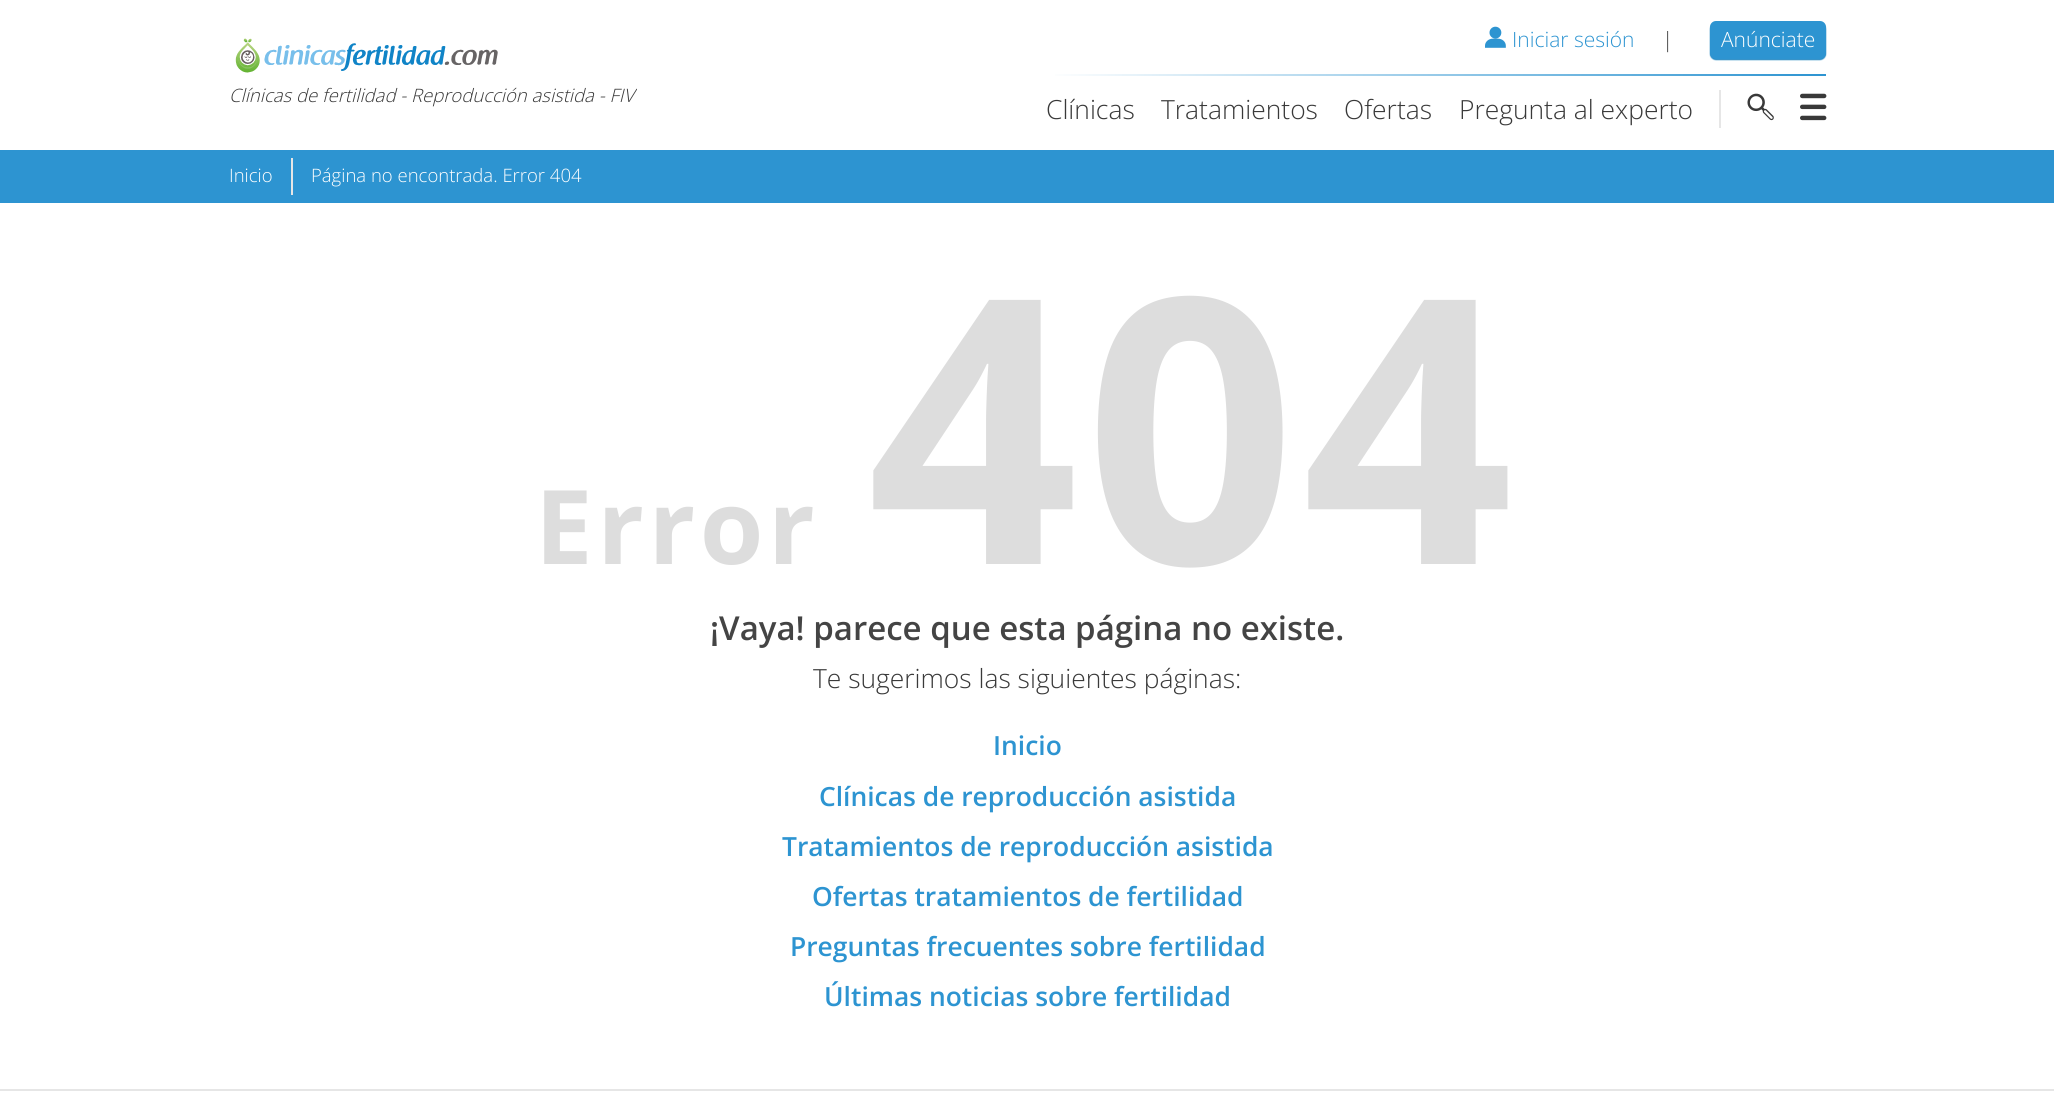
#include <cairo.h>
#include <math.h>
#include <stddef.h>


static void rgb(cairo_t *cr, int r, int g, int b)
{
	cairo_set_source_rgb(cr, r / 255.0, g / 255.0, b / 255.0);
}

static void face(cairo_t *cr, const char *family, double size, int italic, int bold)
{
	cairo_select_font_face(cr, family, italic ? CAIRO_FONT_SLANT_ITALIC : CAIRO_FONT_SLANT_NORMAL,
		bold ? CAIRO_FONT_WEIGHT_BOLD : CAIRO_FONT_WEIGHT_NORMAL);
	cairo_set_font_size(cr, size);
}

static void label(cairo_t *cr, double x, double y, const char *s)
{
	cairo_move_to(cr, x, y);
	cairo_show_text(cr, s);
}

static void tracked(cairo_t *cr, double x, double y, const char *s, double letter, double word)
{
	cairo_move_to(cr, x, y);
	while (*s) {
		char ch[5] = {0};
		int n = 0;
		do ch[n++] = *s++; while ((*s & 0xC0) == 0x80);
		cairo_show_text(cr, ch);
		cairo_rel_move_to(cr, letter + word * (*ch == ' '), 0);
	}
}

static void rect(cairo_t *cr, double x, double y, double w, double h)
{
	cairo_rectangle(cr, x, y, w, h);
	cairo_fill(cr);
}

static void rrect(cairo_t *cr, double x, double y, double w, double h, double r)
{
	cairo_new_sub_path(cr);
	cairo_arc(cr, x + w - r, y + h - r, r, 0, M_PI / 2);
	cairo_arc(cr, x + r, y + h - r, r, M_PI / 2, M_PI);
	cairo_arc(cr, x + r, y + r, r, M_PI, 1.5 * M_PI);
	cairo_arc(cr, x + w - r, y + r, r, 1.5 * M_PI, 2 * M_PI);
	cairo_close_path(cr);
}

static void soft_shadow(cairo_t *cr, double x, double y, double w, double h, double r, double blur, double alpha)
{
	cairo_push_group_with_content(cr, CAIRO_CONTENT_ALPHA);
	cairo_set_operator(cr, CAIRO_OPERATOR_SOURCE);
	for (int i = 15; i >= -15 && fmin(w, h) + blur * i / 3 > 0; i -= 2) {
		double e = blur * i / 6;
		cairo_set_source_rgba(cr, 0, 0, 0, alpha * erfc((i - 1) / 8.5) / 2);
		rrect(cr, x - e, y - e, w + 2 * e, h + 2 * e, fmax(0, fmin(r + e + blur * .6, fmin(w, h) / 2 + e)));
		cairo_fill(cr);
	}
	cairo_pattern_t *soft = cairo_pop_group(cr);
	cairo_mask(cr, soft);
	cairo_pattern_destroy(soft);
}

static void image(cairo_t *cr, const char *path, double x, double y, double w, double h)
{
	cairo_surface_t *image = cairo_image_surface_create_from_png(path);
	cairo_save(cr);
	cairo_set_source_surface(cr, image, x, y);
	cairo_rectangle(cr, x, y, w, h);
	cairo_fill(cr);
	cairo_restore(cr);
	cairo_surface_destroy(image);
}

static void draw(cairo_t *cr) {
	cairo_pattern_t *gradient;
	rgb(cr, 255, 255, 255);
	cairo_paint(cr);
	image(cr, "image0.png", 235, 38, 263, 35);
	face(cr, "Open Sans Light", 18.5, 1, 0);
	rgb(cr, 57, 57, 57);
	label(cr, 229, 102, "Clínicas de fertilidad - Reproducción asistida - FIV");
	image(cr, "image1.png", 1485, 26, 21, 22);
	face(cr, "Open Sans Light", 21, 0, 0);
	rgb(cr, 45, 148, 209);
	label(cr, 1512, 47, "Iniciar sesión");
	rgb(cr, 57, 57, 57);
	label(cr, 1662, 47, "|");
	rgb(cr, 29, 132, 192);
	soft_shadow(cr, 1710, 23, 116, 37, 6, 0.5, 1);
	rgb(cr, 45, 148, 209);
	rrect(cr, 1710, 21, 116, 38, 6);
	cairo_fill(cr);
	rgb(cr, 255, 255, 255);
	label(cr, 1721, 47, "Anúnciate");
	gradient = cairo_pattern_create_linear(1046, 74, 1826, 74);
	cairo_pattern_add_color_stop_rgba(gradient, 0, 1, 1, 1, 1);
	cairo_pattern_add_color_stop_rgba(gradient, 1, 0.176, 0.58, 0.82, 1);
	cairo_set_source(cr, gradient);
	cairo_pattern_destroy(gradient);
	rect(cr, 1055, 74, 771, 2);
	rgb(cr, 230, 230, 230);
	rect(cr, 1719, 90, 2, 38);
	face(cr, "Open Sans Light", 26.4, 0, 0);
	rgb(cr, 57, 57, 57);
	label(cr, 1046, 119, "Clínicas");
	label(cr, 1161, 119, "Tratamientos");
	label(cr, 1344, 119, "Ofertas");
	label(cr, 1459, 119, "Pregunta al experto");
	image(cr, "image2.png", 1747, 93, 27, 28);
	image(cr, "image3.png", 1800, 93, 27, 28);
	rgb(cr, 45, 148, 209);
	rect(cr, 0, 150, 2054, 53);
	rgb(cr, 230, 230, 230);
	rect(cr, 291, 158, 2, 37);
	face(cr, "Open Sans Light", 18.5, 0, 0);
	rgb(cr, 255, 255, 255);
	label(cr, 229, 182, "Inicio");
	label(cr, 311, 182, "Página no encontrada. Error 404");
	face(cr, "Open Sans", 103, 0, 1);
	rgb(cr, 221, 221, 221);
	tracked(cr, 535, 564, "Error", 4.5, 0);
	face(cr, "Open Sans", 370, 0, 1);
	tracked(cr, 867, 564, "404", 6, 0);
	face(cr, "Open Sans SemiBold", 33, 0, 0);
	rgb(cr, 68, 68, 68);
	label(cr, 710, 640, "¡Vaya! parece que esta página no existe.");
	face(cr, "Open Sans Light", 26.4, 0, 0);
	rgb(cr, 57, 57, 57);
	label(cr, 813, 688, "Te sugerimos las siguientes páginas:");
	face(cr, "Open Sans SemiBold", 26.4, 0, 0);
	rgb(cr, 45, 148, 209);
	label(cr, 993, 755, "Inicio");
	label(cr, 819, 806, "Clínicas de reproducción asistida");
	label(cr, 782, 856, "Tratamientos de reproducción asistida");
	label(cr, 812, 906, "Ofertas tratamientos de fertilidad");
	label(cr, 790, 956, "Preguntas frecuentes sobre fertilidad");
	label(cr, 824, 1006, "Últimas noticias sobre fertilidad");
	rgb(cr, 230, 230, 230);
	rect(cr, 0, 1089, 2054, 2);
}

int main(void) {
	cairo_surface_t *surface = cairo_image_surface_create(CAIRO_FORMAT_RGB24, 2054, 1105);
	cairo_t *cr = cairo_create(surface);
	cairo_font_options_t *options = cairo_font_options_create();
	cairo_font_options_set_hint_metrics(options, CAIRO_HINT_METRICS_OFF);
	cairo_font_options_set_hint_style(options, CAIRO_HINT_STYLE_NONE);
	cairo_set_font_options(cr, options);
	cairo_set_miter_limit(cr, 4);
	draw(cr);
	cairo_surface_write_to_png(surface, "render.png");
	cairo_font_options_destroy(options);
	cairo_destroy(cr);
	cairo_surface_destroy(surface);
	return 0;
}
